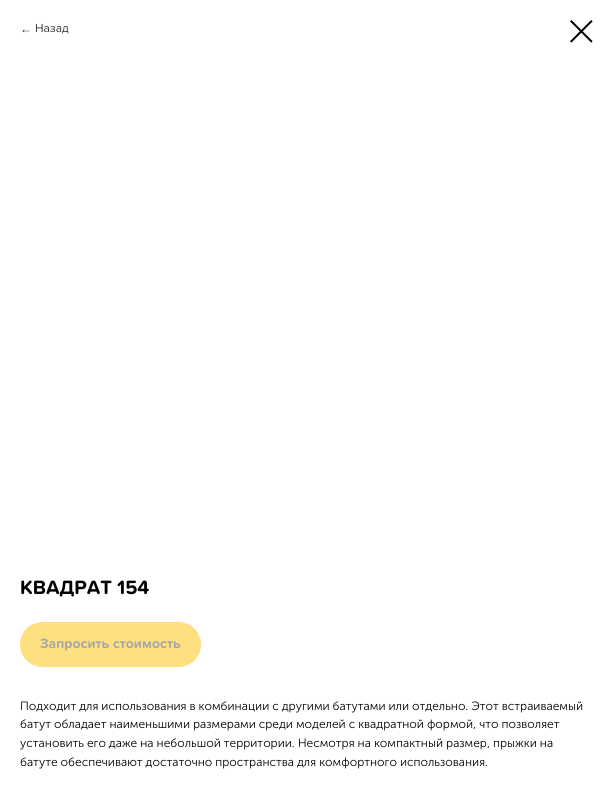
#include <cairo.h>
#include <math.h>
#include <stddef.h>


static void rgb(cairo_t *cr, int r, int g, int b)
{
	cairo_set_source_rgb(cr, r / 255.0, g / 255.0, b / 255.0);
}

static void face(cairo_t *cr, const char *family, double size, int italic, int bold)
{
	cairo_select_font_face(cr, family, italic ? CAIRO_FONT_SLANT_ITALIC : CAIRO_FONT_SLANT_NORMAL,
		bold ? CAIRO_FONT_WEIGHT_BOLD : CAIRO_FONT_WEIGHT_NORMAL);
	cairo_set_font_size(cr, size);
}

static void label(cairo_t *cr, double x, double y, const char *s)
{
	cairo_move_to(cr, x, y);
	cairo_show_text(cr, s);
}

static void rrect(cairo_t *cr, double x, double y, double w, double h, double r)
{
	cairo_new_sub_path(cr);
	cairo_arc(cr, x + w - r, y + h - r, r, 0, M_PI / 2);
	cairo_arc(cr, x + r, y + h - r, r, M_PI / 2, M_PI);
	cairo_arc(cr, x + r, y + r, r, M_PI, 1.5 * M_PI);
	cairo_arc(cr, x + w - r, y + r, r, 1.5 * M_PI, 2 * M_PI);
	cairo_close_path(cr);
}

static void image(cairo_t *cr, const char *path, double x, double y, double w, double h)
{
	cairo_surface_t *image = cairo_image_surface_create_from_png(path);
	cairo_save(cr);
	cairo_set_source_surface(cr, image, x, y);
	cairo_rectangle(cr, x, y, w, h);
	cairo_fill(cr);
	cairo_restore(cr);
	cairo_surface_destroy(image);
}

static void draw(cairo_t *cr) {
	rgb(cr, 255, 255, 255);
	cairo_paint(cr);
	face(cr, "Liberation Sans", 12, 0, 0);
	rgb(cr, 51, 51, 51);
	label(cr, 20, 33, "←");
	face(cr, "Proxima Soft", 12, 0, 0);
	label(cr, 35, 32, "Назад");
	image(cr, "image0.png", 570, 20, 23, 23);
	face(cr, "Proxima Soft", 20, 0, 1);
	rgb(cr, 0, 0, 0);
	label(cr, 20, 594, "КВАДРАТ 154");
	rgb(cr, 255, 224, 128);
	rrect(cr, 20, 622, 181, 45, 22.5);
	cairo_fill(cr);
	face(cr, "Proxima Soft", 14, 0, 1);
	rgb(cr, 166, 166, 166);
	label(cr, 40, 648, "Запросить стоимость");
	face(cr, "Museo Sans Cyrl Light", 12, 0, 0);
	rgb(cr, 0, 0, 0);
	label(cr, 20, 710, "Подходит для использования в комбинации с другими батутами или отдельно. Этот встраиваемый");
	label(cr, 20, 728, "батут обладает наименьшими размерами среди моделей с квадратной формой, что позволяет");
	label(cr, 20, 747, "установить его даже на небольшой территории. Несмотря на компактный размер, прыжки на");
	label(cr, 20, 766, "батуте обеспечивают достаточно пространства для комфортного использования.");
}

int main(void) {
	cairo_surface_t *surface = cairo_image_surface_create(CAIRO_FORMAT_RGB24, 613, 787);
	cairo_t *cr = cairo_create(surface);
	cairo_font_options_t *options = cairo_font_options_create();
	cairo_font_options_set_hint_metrics(options, CAIRO_HINT_METRICS_OFF);
	cairo_font_options_set_hint_style(options, CAIRO_HINT_STYLE_NONE);
	cairo_set_font_options(cr, options);
	cairo_set_miter_limit(cr, 4);
	draw(cr);
	cairo_surface_write_to_png(surface, "render.png");
	cairo_font_options_destroy(options);
	cairo_destroy(cr);
	cairo_surface_destroy(surface);
	return 0;
}
